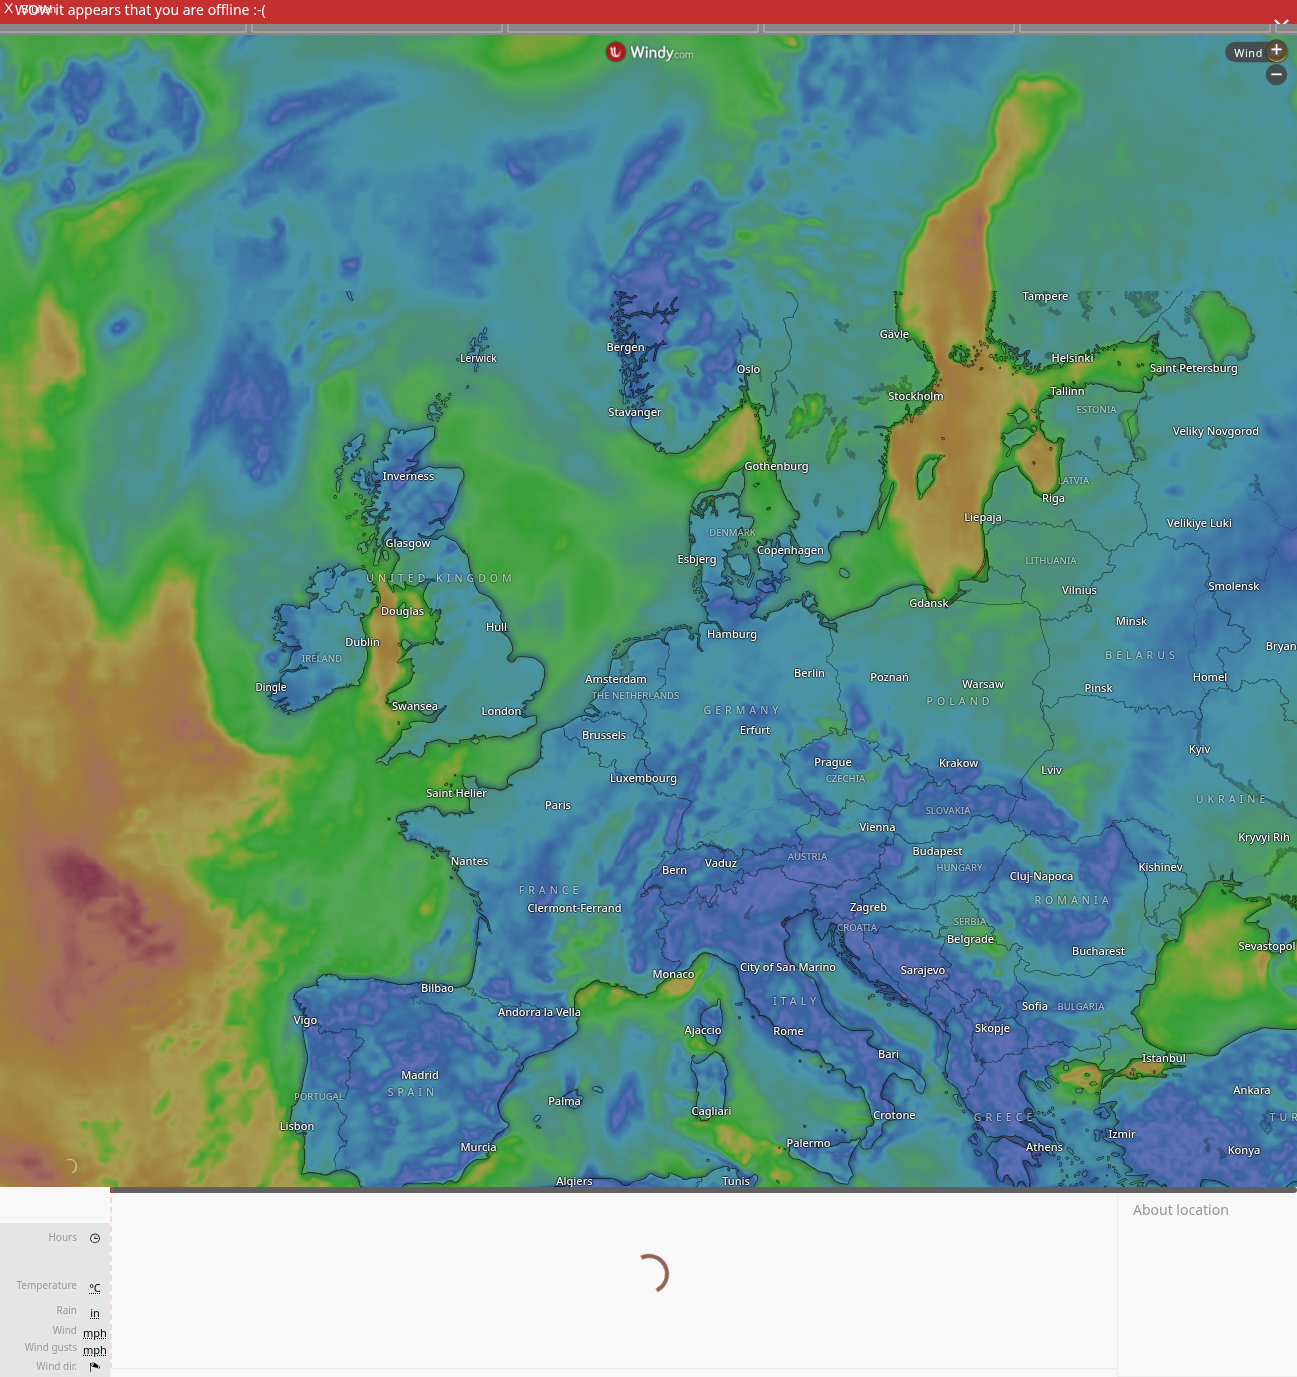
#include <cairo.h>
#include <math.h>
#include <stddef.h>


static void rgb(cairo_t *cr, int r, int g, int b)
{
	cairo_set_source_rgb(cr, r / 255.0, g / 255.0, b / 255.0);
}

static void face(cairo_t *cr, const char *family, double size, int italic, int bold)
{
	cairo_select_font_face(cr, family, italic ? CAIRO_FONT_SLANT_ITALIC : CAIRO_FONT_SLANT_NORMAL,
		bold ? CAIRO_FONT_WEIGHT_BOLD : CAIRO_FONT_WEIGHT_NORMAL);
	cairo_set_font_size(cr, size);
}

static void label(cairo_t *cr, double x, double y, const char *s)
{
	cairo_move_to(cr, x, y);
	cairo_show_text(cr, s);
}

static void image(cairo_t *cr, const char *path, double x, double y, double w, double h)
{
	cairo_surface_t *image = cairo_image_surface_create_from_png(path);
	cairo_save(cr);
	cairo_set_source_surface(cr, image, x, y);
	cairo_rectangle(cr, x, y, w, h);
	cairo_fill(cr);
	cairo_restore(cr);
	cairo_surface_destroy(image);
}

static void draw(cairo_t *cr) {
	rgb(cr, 255, 255, 255);
	cairo_paint(cr);
	image(cr, "image0.png", 0, 0, 1297, 1377);
	face(cr, "Liberation Sans", 14, 0, 0);
	rgb(cr, 255, 255, 255);
	label(cr, 4, 13, "X");
	face(cr, "Liberation Sans", 11.5, 0, 0);
	label(cr, 21, 13, "Sluiten");
	image(cr, "image1.png", 64, 1158, 606, 137);
}

int main(void) {
	cairo_surface_t *surface = cairo_image_surface_create(CAIRO_FORMAT_RGB24, 1297, 1377);
	cairo_t *cr = cairo_create(surface);
	cairo_font_options_t *options = cairo_font_options_create();
	cairo_font_options_set_hint_metrics(options, CAIRO_HINT_METRICS_OFF);
	cairo_font_options_set_hint_style(options, CAIRO_HINT_STYLE_NONE);
	cairo_set_font_options(cr, options);
	cairo_set_miter_limit(cr, 4);
	draw(cr);
	cairo_surface_write_to_png(surface, "render.png");
	cairo_font_options_destroy(options);
	cairo_destroy(cr);
	cairo_surface_destroy(surface);
	return 0;
}
